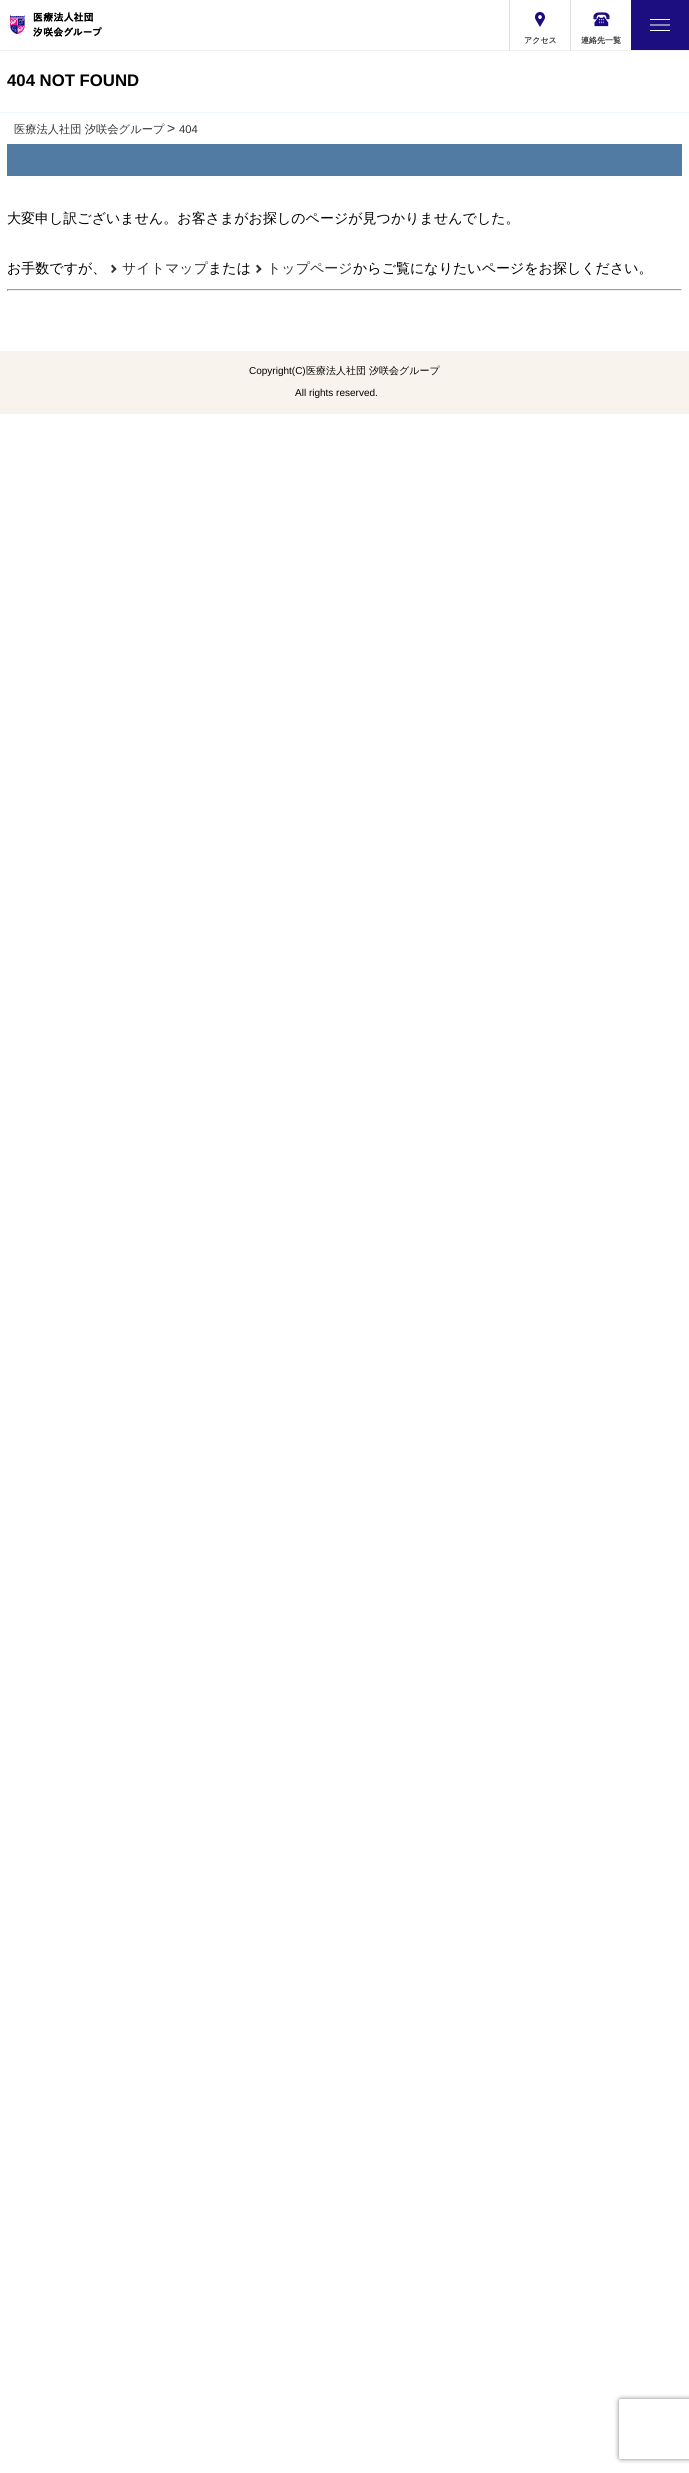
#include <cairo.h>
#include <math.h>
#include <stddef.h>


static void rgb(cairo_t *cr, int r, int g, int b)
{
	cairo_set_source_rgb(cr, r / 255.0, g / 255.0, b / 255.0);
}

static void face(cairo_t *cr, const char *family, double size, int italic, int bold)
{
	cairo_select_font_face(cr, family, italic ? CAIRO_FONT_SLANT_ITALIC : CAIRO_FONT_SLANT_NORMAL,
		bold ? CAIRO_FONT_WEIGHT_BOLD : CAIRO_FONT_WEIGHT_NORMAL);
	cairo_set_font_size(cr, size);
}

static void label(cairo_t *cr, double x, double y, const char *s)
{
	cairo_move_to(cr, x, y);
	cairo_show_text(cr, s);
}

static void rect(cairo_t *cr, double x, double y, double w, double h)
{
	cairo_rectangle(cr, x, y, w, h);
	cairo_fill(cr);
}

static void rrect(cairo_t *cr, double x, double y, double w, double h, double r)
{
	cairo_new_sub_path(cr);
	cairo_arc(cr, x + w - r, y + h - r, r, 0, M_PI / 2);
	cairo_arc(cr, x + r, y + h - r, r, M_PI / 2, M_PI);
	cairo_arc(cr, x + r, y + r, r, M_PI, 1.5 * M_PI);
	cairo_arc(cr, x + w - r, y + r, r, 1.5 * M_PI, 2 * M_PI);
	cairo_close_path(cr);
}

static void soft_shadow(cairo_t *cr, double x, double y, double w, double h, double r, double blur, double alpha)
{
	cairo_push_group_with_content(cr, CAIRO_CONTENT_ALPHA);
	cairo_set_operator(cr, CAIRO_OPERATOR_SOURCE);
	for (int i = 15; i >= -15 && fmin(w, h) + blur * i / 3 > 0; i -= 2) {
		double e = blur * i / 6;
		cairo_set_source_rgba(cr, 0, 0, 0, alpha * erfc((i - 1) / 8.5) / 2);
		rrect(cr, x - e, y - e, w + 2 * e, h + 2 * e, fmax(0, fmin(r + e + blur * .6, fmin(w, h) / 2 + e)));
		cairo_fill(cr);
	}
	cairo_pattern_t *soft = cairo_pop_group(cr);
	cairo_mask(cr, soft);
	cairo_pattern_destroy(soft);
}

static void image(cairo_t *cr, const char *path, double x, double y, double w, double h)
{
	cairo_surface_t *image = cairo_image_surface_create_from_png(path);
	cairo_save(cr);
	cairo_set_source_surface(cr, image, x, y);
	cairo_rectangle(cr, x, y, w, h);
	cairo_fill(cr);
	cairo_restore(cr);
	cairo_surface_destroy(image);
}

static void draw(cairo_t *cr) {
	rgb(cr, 255, 255, 255);
	cairo_paint(cr);
	rgb(cr, 240, 240, 240);
	rect(cr, 0, 50, 689, 1);
	image(cr, "image0.png", 10, 12, 92, 25);
	rgb(cr, 223, 223, 223);
	rect(cr, 509, 0, 1, 50);
	image(cr, "image1.png", 535, 12, 10, 15);
	face(cr, "WenQuanYi Zen Hei", 8, 0, 1);
	rgb(cr, 51, 51, 51);
	label(cr, 524, 43, "アクセス");
	rgb(cr, 223, 223, 223);
	rect(cr, 570, 0, 1, 50);
	image(cr, "image2.png", 593, 12, 17, 15);
	rgb(cr, 51, 51, 51);
	label(cr, 581, 43, "連絡先一覧");
	rgb(cr, 28, 14, 128);
	rect(cr, 631, 0, 58, 50);
	image(cr, "image3.png", 650, 19, 20, 12);
	rgb(cr, 240, 248, 254);
	rect(cr, 0, 112, 689, 1);
	face(cr, "Liberation Sans", 16.75, 0, 1);
	rgb(cr, 0, 0, 0);
	label(cr, 7, 86, "404 NOT FOUND");
	face(cr, "WenQuanYi Zen Hei Medium", 11.25, 0, 0);
	rgb(cr, 51, 51, 51);
	label(cr, 14, 133, "医療法人社団 汐咲会グループ");
	face(cr, "Liberation Sans", 14, 0, 0);
	label(cr, 167, 133, ">");
	face(cr, "Liberation Sans", 11.25, 0, 0);
	label(cr, 179, 133, "404");
	rgb(cr, 82, 123, 163);
	rect(cr, 7, 144, 675, 32);
	face(cr, "WenQuanYi Zen Hei Medium", 14, 0, 0);
	rgb(cr, 0, 0, 0);
	label(cr, 7, 223, "大変申し訳ございません。お客さまがお探しのページが見つかりませんでした。");
	label(cr, 7, 273, "お手数ですが、");
	rgb(cr, 51, 51, 51);
	cairo_new_path(cr);
	cairo_move_to(cr, 112.5, 264.5);
	cairo_line_to(cr, 116.5, 269);
	cairo_line_to(cr, 115, 270.5);
	cairo_line_to(cr, 111, 266);
	cairo_close_path(cr);
	cairo_fill(cr);
	cairo_new_path(cr);
	cairo_move_to(cr, 115, 267.5);
	cairo_line_to(cr, 116.5, 269);
	cairo_line_to(cr, 112.5, 273);
	cairo_line_to(cr, 111, 272);
	cairo_close_path(cr);
	cairo_fill(cr);
	label(cr, 122, 273, "サイトマップ");
	rgb(cr, 0, 0, 0);
	label(cr, 208, 273, "または");
	rgb(cr, 51, 51, 51);
	cairo_new_path(cr);
	cairo_move_to(cr, 257.5, 264.5);
	cairo_line_to(cr, 261.5, 269);
	cairo_line_to(cr, 260, 270.5);
	cairo_line_to(cr, 256, 266);
	cairo_close_path(cr);
	cairo_fill(cr);
	cairo_new_path(cr);
	cairo_move_to(cr, 260, 267.5);
	cairo_line_to(cr, 261.5, 269);
	cairo_line_to(cr, 257.5, 273);
	cairo_line_to(cr, 256, 272);
	cairo_close_path(cr);
	cairo_fill(cr);
	label(cr, 267, 273, "トップページ");
	rgb(cr, 0, 0, 0);
	label(cr, 353, 273, "からご覧になりたいページをお探しください。");
	rgb(cr, 159, 159, 159);
	rect(cr, 7, 289, 675, 1);
	rgb(cr, 238, 238, 238);
	rect(cr, 681, 289, 1, 2);
	rect(cr, 7, 290, 675, 1);
	rgb(cr, 159, 159, 159);
	rect(cr, 7, 289, 1, 2);
	rgb(cr, 249, 243, 238);
	rect(cr, 0, 351, 689, 63);
	face(cr, "Liberation Sans", 10, 0, 0);
	rgb(cr, 0, 0, 0);
	label(cr, 249, 374, "Copyright(C)");
	face(cr, "WenQuanYi Zen Hei Medium", 10, 0, 0);
	label(cr, 306, 374, "医療法人社団 汐咲会グループ");
	face(cr, "Liberation Sans", 10, 0, 0);
	label(cr, 295, 396, "All rights reserved.");
	cairo_save(cr);
	cairo_set_fill_rule(cr, CAIRO_FILL_RULE_EVEN_ODD);
	cairo_new_path(cr);
	cairo_move_to(cr, 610, 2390);
	cairo_line_to(cr, 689, 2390);
	cairo_line_to(cr, 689, 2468);
	cairo_line_to(cr, 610, 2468);
	cairo_close_path(cr);
	cairo_move_to(cr, 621, 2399);
	cairo_line_to(cr, 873, 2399);
	cairo_curve_to(cr, 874, 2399, 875, 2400, 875, 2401);
	cairo_line_to(cr, 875, 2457);
	cairo_curve_to(cr, 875, 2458, 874, 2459, 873, 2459);
	cairo_line_to(cr, 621, 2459);
	cairo_curve_to(cr, 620, 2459, 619, 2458, 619, 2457);
	cairo_line_to(cr, 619, 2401);
	cairo_curve_to(cr, 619, 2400, 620, 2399, 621, 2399);
	cairo_close_path(cr);
	cairo_clip(cr);
	rgb(cr, 128, 128, 128);
	soft_shadow(cr, 619, 2399, 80, 60, 2, 2.5, 1);
	cairo_restore(cr);
}

int main(void) {
	cairo_surface_t *surface = cairo_image_surface_create(CAIRO_FORMAT_RGB24, 689, 2473);
	cairo_t *cr = cairo_create(surface);
	cairo_font_options_t *options = cairo_font_options_create();
	cairo_font_options_set_hint_metrics(options, CAIRO_HINT_METRICS_OFF);
	cairo_font_options_set_hint_style(options, CAIRO_HINT_STYLE_NONE);
	cairo_set_font_options(cr, options);
	cairo_set_miter_limit(cr, 4);
	draw(cr);
	cairo_surface_write_to_png(surface, "render.png");
	cairo_font_options_destroy(options);
	cairo_destroy(cr);
	cairo_surface_destroy(surface);
	return 0;
}
